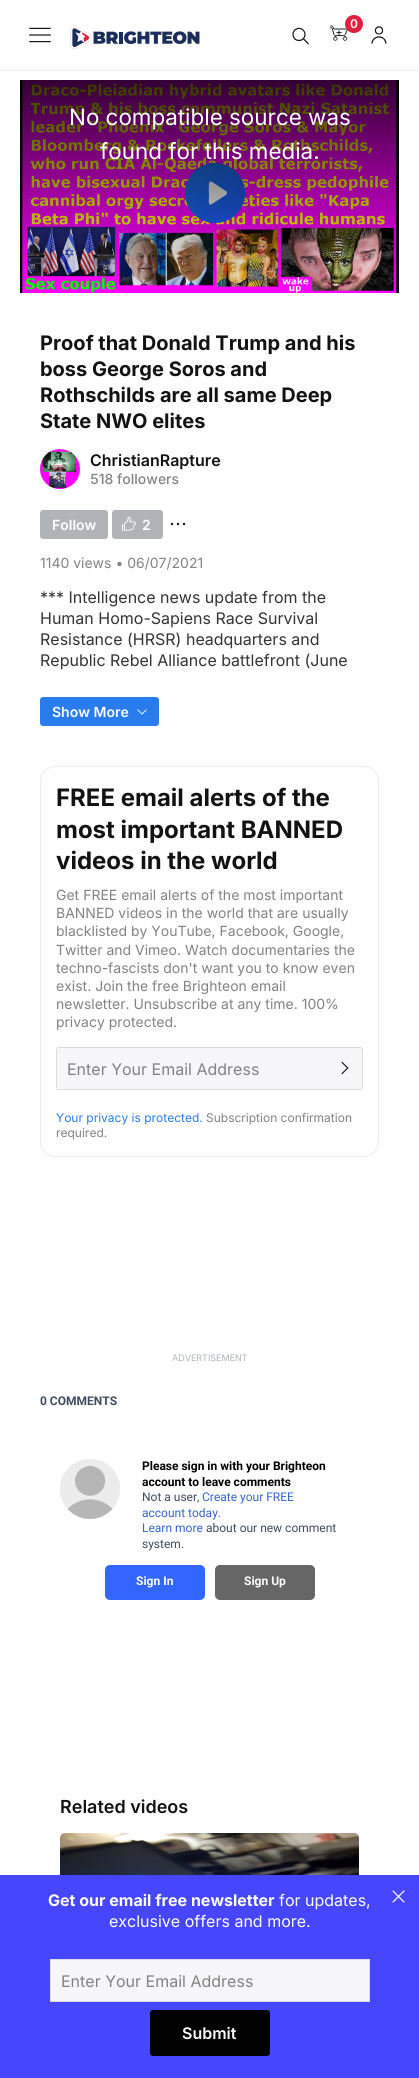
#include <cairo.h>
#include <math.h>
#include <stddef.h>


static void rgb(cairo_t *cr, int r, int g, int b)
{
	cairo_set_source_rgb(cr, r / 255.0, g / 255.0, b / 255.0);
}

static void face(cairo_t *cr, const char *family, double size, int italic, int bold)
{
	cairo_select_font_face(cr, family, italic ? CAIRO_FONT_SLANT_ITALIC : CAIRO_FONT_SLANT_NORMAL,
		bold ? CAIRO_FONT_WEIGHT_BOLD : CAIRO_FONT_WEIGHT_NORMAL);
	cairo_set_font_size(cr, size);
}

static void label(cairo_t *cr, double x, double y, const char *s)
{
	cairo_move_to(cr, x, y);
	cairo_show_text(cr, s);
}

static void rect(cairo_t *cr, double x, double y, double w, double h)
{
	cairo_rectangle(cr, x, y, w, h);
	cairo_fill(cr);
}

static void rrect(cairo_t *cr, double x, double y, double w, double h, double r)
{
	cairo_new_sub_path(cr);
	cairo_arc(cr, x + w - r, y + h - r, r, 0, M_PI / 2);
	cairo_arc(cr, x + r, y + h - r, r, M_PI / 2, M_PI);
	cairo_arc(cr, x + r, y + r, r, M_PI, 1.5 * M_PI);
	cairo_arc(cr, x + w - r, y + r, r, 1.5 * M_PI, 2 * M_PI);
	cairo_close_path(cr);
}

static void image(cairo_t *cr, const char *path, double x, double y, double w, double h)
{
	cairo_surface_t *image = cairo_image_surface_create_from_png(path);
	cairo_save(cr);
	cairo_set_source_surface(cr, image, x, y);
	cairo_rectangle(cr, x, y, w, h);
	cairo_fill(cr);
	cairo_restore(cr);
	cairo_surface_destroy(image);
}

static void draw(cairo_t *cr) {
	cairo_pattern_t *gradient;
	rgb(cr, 255, 255, 255);
	cairo_paint(cr);
	rgb(cr, 236, 236, 236);
	rect(cr, 0, 70, 419, 1);
	image(cr, "image0.png", 330, 25, 18, 16);
	rgb(cr, 224, 32, 60);
	cairo_arc(cr, 354, 24, 9, 0, 2 * M_PI);
	cairo_fill(cr);
	face(cr, "Inter SemiBold", 12, 0, 0);
	rgb(cr, 255, 255, 255);
	label(cr, 350, 28, "0");
	image(cr, "image1.png", 292, 27, 17, 18);
	image(cr, "image2.png", 371, 26, 16, 18);
	image(cr, "image3.png", 29, 27, 22, 16);
	image(cr, "image4.png", 70, 26, 130, 23);
	rgb(cr, 0, 0, 0);
	rect(cr, 20, 80, 379, 213);
	image(cr, "image5.png", 22, 80, 375, 213);
	gradient = cairo_pattern_create_linear(190, 162, 226, 206);
	cairo_pattern_add_color_stop_rgba(gradient, 0, 0.102, 0.494, 0.98, 1);
	cairo_pattern_add_color_stop_rgba(gradient, 1, 0.11, 0.38, 0.976, 1);
	cairo_set_source(cr, gradient);
	cairo_pattern_destroy(gradient);
	cairo_arc(cr, 215, 193, 30, 0, 2 * M_PI);
	cairo_fill(cr);
	rgb(cr, 255, 255, 255);
	cairo_new_path(cr);
	cairo_move_to(cr, 212, 204);
	cairo_curve_to(cr, 207.5, 207, 209, 197.5, 209, 196);
	cairo_curve_to(cr, 209, 194, 208, 182.5, 210, 181.5);
	cairo_line_to(cr, 211.5, 181.5);
	cairo_line_to(cr, 226.5, 191.5);
	cairo_line_to(cr, 227, 193);
	cairo_line_to(cr, 226.5, 194.5);
	cairo_close_path(cr);
	cairo_fill(cr);
	gradient = cairo_pattern_create_linear(210, 80, 210, 293);
	cairo_pattern_add_color_stop_rgba(gradient, 0, 0, 0, 0, 0.8);
	cairo_pattern_add_color_stop_rgba(gradient, 1, 0, 0, 0, 0);
	cairo_set_source(cr, gradient);
	cairo_pattern_destroy(gradient);
	rect(cr, 22, 80, 375, 207);
	face(cr, "Inter", 22.4, 0, 0);
	rgb(cr, 255, 255, 255);
	label(cr, 69, 125, "No compatible source was");
	label(cr, 100, 159, "found for this media.");
	face(cr, "Inter", 20, 0, 1);
	rgb(cr, 18, 18, 18);
	label(cr, 40, 350, "Proof that Donald Trump and his");
	label(cr, 40, 376, "boss George Soros and");
	label(cr, 40, 402, "Rothschilds are all same Deep");
	label(cr, 40, 428, "State NWO elites");
	image(cr, "image6.png", 40, 449, 40, 40);
	face(cr, "Inter SemiBold", 16, 0, 0);
	label(cr, 90, 466, "ChristianRapture");
	face(cr, "Inter Medium", 14, 0, 0);
	rgb(cr, 130, 130, 130);
	label(cr, 90, 484, "518 followers");
	rgb(cr, 176, 179, 184);
	rrect(cr, 40, 510, 68, 29, 3);
	cairo_fill(cr);
	face(cr, "Inter SemiBold", 14, 0, 0);
	rgb(cr, 255, 255, 255);
	label(cr, 52, 530, "Follow");
	rgb(cr, 176, 179, 184);
	rrect(cr, 112, 510, 51, 29, 3);
	cairo_fill(cr);
	image(cr, "image7.png", 122, 516, 15, 15);
	rgb(cr, 255, 255, 255);
	label(cr, 142, 530, "2");
	image(cr, "image8.png", 170, 522, 16, 4);
	face(cr, "Inter", 14, 0, 0);
	rgb(cr, 130, 130, 130);
	label(cr, 40, 568, "1140 views • 06/07/2021");
	face(cr, "Inter", 16, 0, 0);
	rgb(cr, 51, 51, 51);
	label(cr, 40, 603, "*** Intelligence news update from the");
	label(cr, 40, 624, "Human Homo-Sapiens Race Survival");
	label(cr, 40, 645, "Resistance (HRSR) headquarters and");
	label(cr, 40, 666, "Republic Rebel Alliance battlefront (June");
	rgb(cr, 40, 124, 237);
	rrect(cr, 40, 697, 119, 29, 3);
	cairo_fill(cr);
	image(cr, "image9.png", 137, 709, 10, 6);
	face(cr, "Inter SemiBold", 14, 0, 0);
	rgb(cr, 255, 255, 255);
	label(cr, 52, 717, "Show More");
	rrect(cr, 40.5, 766.5, 338, 390, 14.5);
	rgb(cr, 236, 236, 236);
	cairo_set_line_width(cr, 1);
	cairo_stroke(cr);
	face(cr, "Inter", 24, 0, 1);
	rgb(cr, 18, 18, 18);
	label(cr, 56, 806, "FREE email alerts of the");
	label(cr, 56, 838, "most important BANNED");
	label(cr, 56, 869, "videos in the world");
	face(cr, "Inter", 14, 0, 0);
	rgb(cr, 130, 130, 130);
	label(cr, 56, 900, "Get FREE email alerts of the most important");
	label(cr, 56, 918, "BANNED videos in the world that are usually");
	label(cr, 56, 936, "blacklisted by YouTube, Facebook, Google,");
	label(cr, 56, 955, "Twitter and Vimeo. Watch documentaries the");
	label(cr, 56, 973, "techno-fascists don't want you to know even");
	label(cr, 56, 991, "exist. Join the free Brighteon email");
	label(cr, 56, 1009, "newsletter. Unsubscribe at any time. 100%");
	label(cr, 56, 1027, "privacy protected.");
	rgb(cr, 247, 247, 249);
	rrect(cr, 56.5, 1047.5, 306, 42, 2.5);
	cairo_fill_preserve(cr);
	rgb(cr, 219, 219, 219);
	cairo_stroke(cr);
	rgb(cr, 247, 247, 249);
	rect(cr, 57, 1048, 2, 41);
	face(cr, "Inter", 16, 0, 0);
	rgb(cr, 130, 130, 130);
	label(cr, 67, 1075, "Enter Your Email Address");
	image(cr, "image10.png", 341, 1061, 8, 14);
	face(cr, "Inter", 12, 0, 0);
	rgb(cr, 40, 124, 237);
	label(cr, 56, 1122, "Your privacy is protected.");
	rgb(cr, 130, 130, 130);
	label(cr, 206, 1122, "Subscription confirmation");
	label(cr, 56, 1137, "required.");
	face(cr, "Inter", 9, 0, 0);
	rgb(cr, 176, 179, 184);
	label(cr, 172, 1361, "ADVERTISEMENT");
	face(cr, "Roboto", 12, 0, 1);
	rgb(cr, 63, 75, 94);
	label(cr, 40, 1405, "0 COMMENTS");
	rgb(cr, 236, 236, 236);
	cairo_new_path(cr);
	cairo_arc(cr, 90, 1489, 30, 0, 2 * M_PI);
	cairo_fill(cr);
	image(cr, "image11.png", 60, 1459, 60, 60);
	rgb(cr, 0, 0, 0);
	label(cr, 142, 1470, "Please sign in with your Brighteon");
	label(cr, 142, 1486, "account to leave comments");
	face(cr, "Roboto", 12, 0, 0);
	rgb(cr, 63, 75, 94);
	label(cr, 142, 1501, "Not a user,");
	rgb(cr, 51, 102, 204);
	label(cr, 202, 1501, "Create your FREE");
	label(cr, 142, 1517, "account today.");
	label(cr, 142, 1532, "Learn more");
	rgb(cr, 63, 75, 94);
	label(cr, 206, 1532, "about our new comment");
	label(cr, 142, 1548, "system.");
	rgb(cr, 50, 102, 255);
	rrect(cr, 105, 1565, 100, 35, 5);
	cairo_fill(cr);
	face(cr, "Roboto", 12, 0, 1);
	rgb(cr, 255, 255, 255);
	label(cr, 136, 1585, "Sign In");
	rgb(cr, 102, 102, 102);
	rrect(cr, 215, 1565, 100, 35, 5);
	cairo_fill(cr);
	rgb(cr, 255, 255, 255);
	label(cr, 244, 1585, "Sign Up");
	face(cr, "Inter SemiBold", 18, 0, 0);
	rgb(cr, 18, 18, 18);
	label(cr, 60, 1813, "Related videos");
	image(cr, "image12.png", 60, 1833, 299, 42);
	rgb(cr, 70, 70, 254);
	rect(cr, 0, 1875, 419, 203);
	face(cr, "Inter", 16, 0, 1);
	rgb(cr, 255, 255, 255);
	label(cr, 48, 1906, "Get our email free newsletter");
	face(cr, "Inter", 16, 0, 0);
	label(cr, 279, 1906, "for updates,");
	label(cr, 109, 1927, "exclusive offers and more.");
	image(cr, "image13.png", 392, 1890, 13, 13);
	rgb(cr, 247, 247, 249);
	cairo_rectangle(cr, 50.5, 1959.5, 319, 42);
	cairo_fill_preserve(cr);
	rgb(cr, 219, 219, 219);
	cairo_stroke(cr);
	rgb(cr, 130, 130, 130);
	label(cr, 61, 1987, "Enter Your Email Address");
	rgb(cr, 0, 0, 0);
	rrect(cr, 150, 2010, 120, 46, 3);
	cairo_fill(cr);
	face(cr, "Inter SemiBold", 16, 0, 0);
	rgb(cr, 255, 255, 255);
	label(cr, 182, 2039, "Submit");
}

int main(void) {
	cairo_surface_t *surface = cairo_image_surface_create(CAIRO_FORMAT_RGB24, 419, 2078);
	cairo_t *cr = cairo_create(surface);
	cairo_font_options_t *options = cairo_font_options_create();
	cairo_font_options_set_hint_metrics(options, CAIRO_HINT_METRICS_OFF);
	cairo_font_options_set_hint_style(options, CAIRO_HINT_STYLE_NONE);
	cairo_set_font_options(cr, options);
	cairo_set_miter_limit(cr, 4);
	draw(cr);
	cairo_surface_write_to_png(surface, "render.png");
	cairo_font_options_destroy(options);
	cairo_destroy(cr);
	cairo_surface_destroy(surface);
	return 0;
}
